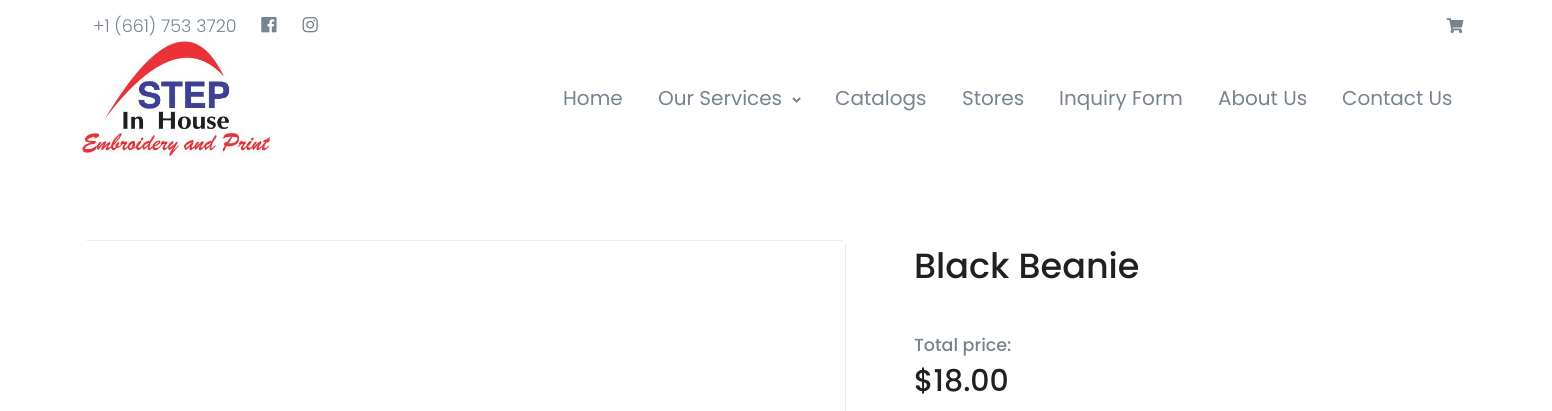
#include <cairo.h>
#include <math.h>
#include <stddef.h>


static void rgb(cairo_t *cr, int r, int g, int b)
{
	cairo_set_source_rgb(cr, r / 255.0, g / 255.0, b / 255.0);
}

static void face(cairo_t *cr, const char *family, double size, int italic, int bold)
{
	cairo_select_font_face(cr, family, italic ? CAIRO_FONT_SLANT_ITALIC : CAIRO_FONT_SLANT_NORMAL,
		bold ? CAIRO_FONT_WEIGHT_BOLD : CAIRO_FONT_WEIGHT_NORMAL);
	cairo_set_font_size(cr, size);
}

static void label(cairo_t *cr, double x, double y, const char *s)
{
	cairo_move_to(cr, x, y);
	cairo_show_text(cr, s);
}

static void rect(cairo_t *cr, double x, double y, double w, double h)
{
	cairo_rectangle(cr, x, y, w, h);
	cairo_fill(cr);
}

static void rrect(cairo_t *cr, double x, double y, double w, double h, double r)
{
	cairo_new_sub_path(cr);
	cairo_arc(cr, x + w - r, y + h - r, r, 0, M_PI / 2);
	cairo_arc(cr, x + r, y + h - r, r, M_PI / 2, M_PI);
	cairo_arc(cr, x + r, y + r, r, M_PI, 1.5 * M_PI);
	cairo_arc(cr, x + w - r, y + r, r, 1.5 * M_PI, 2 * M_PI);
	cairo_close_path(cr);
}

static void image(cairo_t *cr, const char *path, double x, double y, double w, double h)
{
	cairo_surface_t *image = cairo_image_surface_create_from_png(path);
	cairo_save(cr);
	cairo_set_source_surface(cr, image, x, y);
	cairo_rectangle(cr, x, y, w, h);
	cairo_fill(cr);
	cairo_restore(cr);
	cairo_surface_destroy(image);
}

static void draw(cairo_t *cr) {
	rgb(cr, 255, 255, 255);
	cairo_paint(cr);
	face(cr, "Poppins Light", 17.5, 0, 0);
	rgb(cr, 119, 131, 143);
	label(cr, 93, 32, "+1 (661) 753 3720");
	image(cr, "image0.png", 261, 17, 16, 16);
	image(cr, "image1.png", 302, 17, 16, 16);
	image(cr, "image2.png", 1446, 18, 18, 16);
	image(cr, "image3.png", 82, 41, 188, 116);
	face(cr, "Poppins", 20, 0, 0);
	label(cr, 563, 105, "Home");
	label(cr, 658, 105, "Our Services");
	image(cr, "image4.png", 792, 97, 9, 6);
	label(cr, 835, 105, "Catalogs");
	label(cr, 962, 105, "Stores");
	label(cr, 1059, 105, "Inquiry Form");
	label(cr, 1218, 105, "About Us");
	label(cr, 1342, 105, "Contact Us");
	rrect(cr, 83.5, 240.5, 762, 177, 5.5);
	rgb(cr, 231, 234, 243);
	cairo_set_line_width(cr, 1);
	cairo_stroke(cr);
	rgb(cr, 255, 255, 255);
	rect(cr, 83, 241, 762, 170);
	face(cr, "Poppins Medium", 35, 0, 0);
	rgb(cr, 30, 32, 34);
	label(cr, 914, 278, "Black Beanie");
	face(cr, "Poppins Medium", 17.5, 0, 0);
	rgb(cr, 119, 131, 143);
	label(cr, 914, 351, "Total price:");
	face(cr, "Poppins Medium", 30, 0, 0);
	rgb(cr, 30, 32, 34);
	label(cr, 914, 391, "$18.00");
}

int main(void) {
	cairo_surface_t *surface = cairo_image_surface_create(CAIRO_FORMAT_RGB24, 1552, 411);
	cairo_t *cr = cairo_create(surface);
	cairo_font_options_t *options = cairo_font_options_create();
	cairo_font_options_set_hint_metrics(options, CAIRO_HINT_METRICS_OFF);
	cairo_font_options_set_hint_style(options, CAIRO_HINT_STYLE_NONE);
	cairo_set_font_options(cr, options);
	cairo_set_miter_limit(cr, 4);
	draw(cr);
	cairo_surface_write_to_png(surface, "render.png");
	cairo_font_options_destroy(options);
	cairo_destroy(cr);
	cairo_surface_destroy(surface);
	return 0;
}
